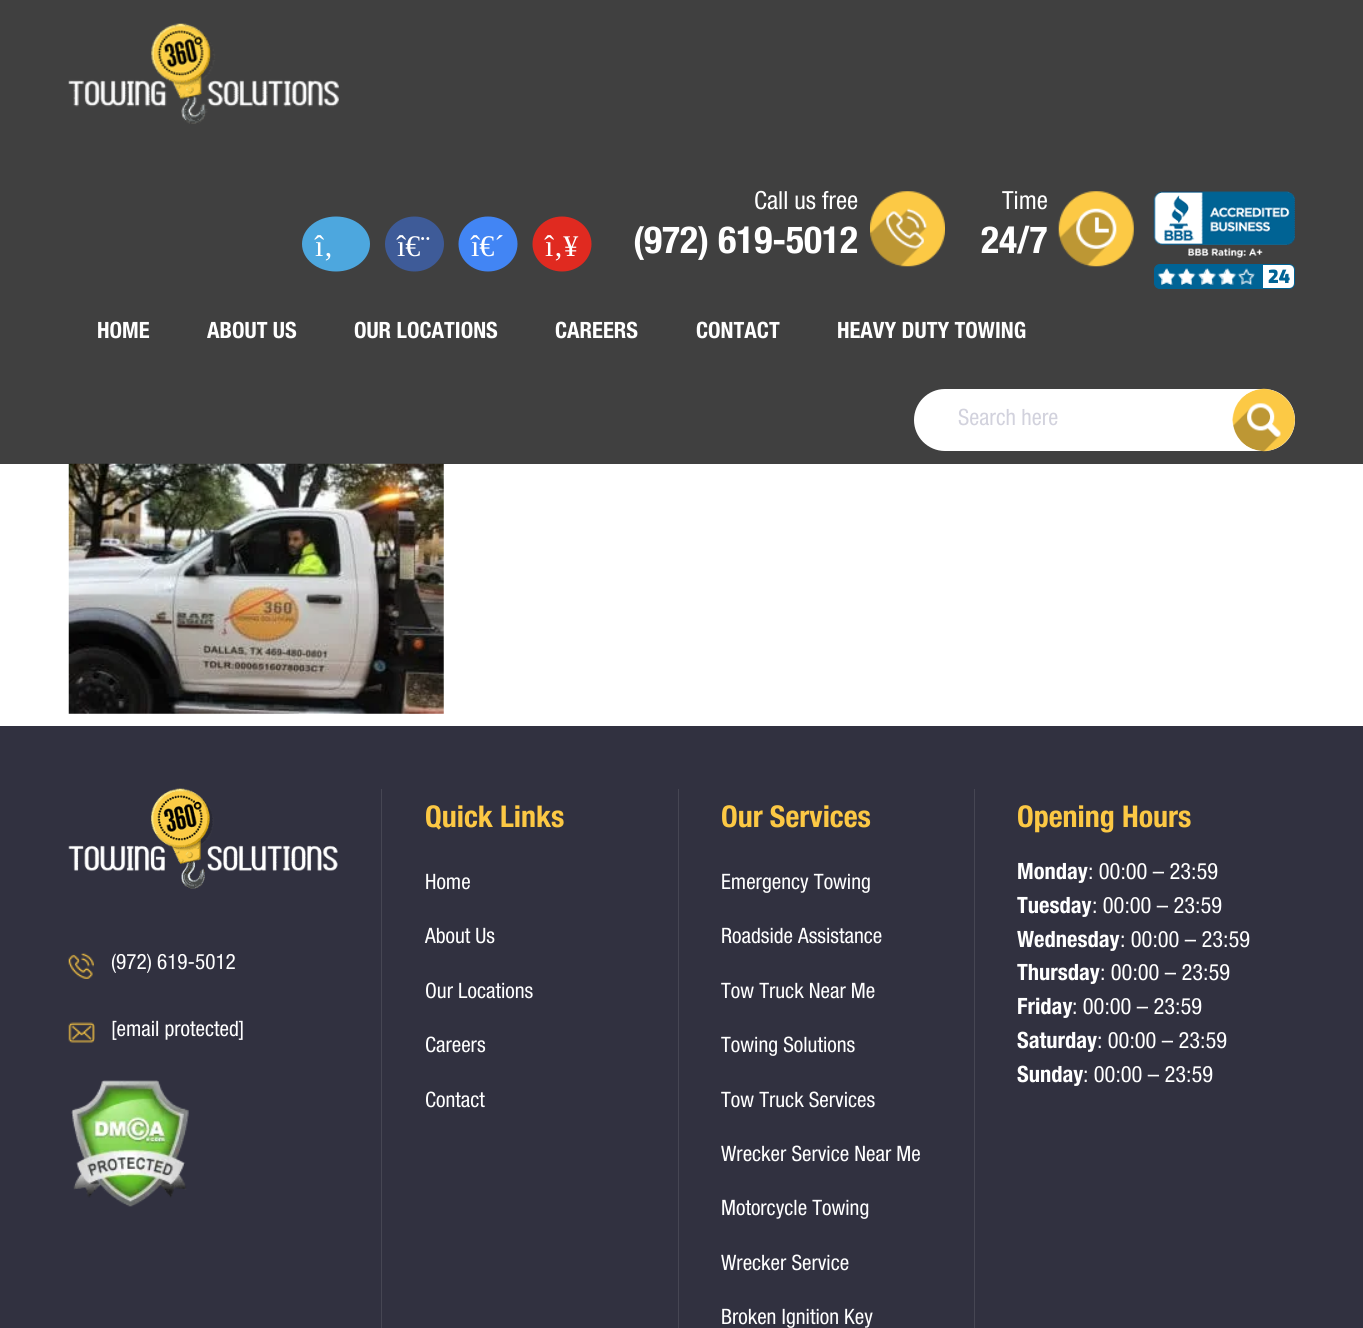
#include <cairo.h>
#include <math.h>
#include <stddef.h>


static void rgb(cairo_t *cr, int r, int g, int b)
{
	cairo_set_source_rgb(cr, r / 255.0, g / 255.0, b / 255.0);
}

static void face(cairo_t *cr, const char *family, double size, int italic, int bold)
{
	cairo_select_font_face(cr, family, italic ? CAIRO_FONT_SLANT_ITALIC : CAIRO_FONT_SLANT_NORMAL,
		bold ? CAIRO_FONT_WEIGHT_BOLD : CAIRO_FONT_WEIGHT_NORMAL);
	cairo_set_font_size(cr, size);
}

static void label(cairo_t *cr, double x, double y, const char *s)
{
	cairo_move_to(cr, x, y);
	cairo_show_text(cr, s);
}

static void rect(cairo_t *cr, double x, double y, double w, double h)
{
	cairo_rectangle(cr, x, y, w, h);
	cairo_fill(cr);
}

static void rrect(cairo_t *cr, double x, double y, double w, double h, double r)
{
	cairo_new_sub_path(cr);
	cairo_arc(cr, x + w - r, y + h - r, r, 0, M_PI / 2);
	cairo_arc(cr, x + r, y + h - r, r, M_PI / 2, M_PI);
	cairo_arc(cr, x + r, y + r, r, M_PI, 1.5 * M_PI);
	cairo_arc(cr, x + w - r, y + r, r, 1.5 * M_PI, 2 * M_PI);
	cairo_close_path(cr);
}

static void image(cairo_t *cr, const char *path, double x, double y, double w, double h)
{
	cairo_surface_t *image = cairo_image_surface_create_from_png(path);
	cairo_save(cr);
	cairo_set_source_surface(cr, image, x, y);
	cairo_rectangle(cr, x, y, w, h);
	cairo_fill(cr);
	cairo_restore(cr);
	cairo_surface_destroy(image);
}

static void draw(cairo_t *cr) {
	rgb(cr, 255, 255, 255);
	cairo_paint(cr);
	rgb(cr, 64, 64, 64);
	rect(cr, 0, 0, 1363, 464);
	image(cr, "image0.png", 68, 23, 271, 101);
	rgb(cr, 77, 167, 222);
	cairo_new_path(cr);
	cairo_move_to(cr, 336, 216.5);
	cairo_curve_to(cr, 355, 216.5, 370, 229, 370, 244);
	cairo_curve_to(cr, 370, 259, 355, 271.5, 336, 271.5);
	cairo_curve_to(cr, 317, 271.5, 302, 259, 302, 244);
	cairo_curve_to(cr, 302, 229, 317, 216.5, 336, 216.5);
	cairo_close_path(cr);
	cairo_fill(cr);
	face(cr, "Liberation Serif", 30, 0, 0);
	rgb(cr, 255, 255, 255);
	label(cr, 315, 256, "î‚");
	rgb(cr, 62, 91, 152);
	cairo_new_path(cr);
	cairo_move_to(cr, 414.5, 216.5);
	cairo_curve_to(cr, 431, 216.5, 444, 229, 444, 244);
	cairo_curve_to(cr, 444, 259, 431, 271.5, 414.5, 271.5);
	cairo_curve_to(cr, 398, 271.5, 385, 259, 385, 244);
	cairo_curve_to(cr, 385, 229, 398, 216.5, 414.5, 216.5);
	cairo_close_path(cr);
	cairo_fill(cr);
	rgb(cr, 255, 255, 255);
	label(cr, 397, 256, "î€¨");
	rgb(cr, 66, 133, 244);
	cairo_new_path(cr);
	cairo_move_to(cr, 488, 216.5);
	cairo_curve_to(cr, 504.5, 216.5, 517.5, 229, 517.5, 244);
	cairo_curve_to(cr, 517.5, 259, 504.5, 271.5, 488, 271.5);
	cairo_curve_to(cr, 471.5, 271.5, 458.5, 259, 458.5, 244);
	cairo_curve_to(cr, 458.5, 229, 471.5, 216.5, 488, 216.5);
	cairo_close_path(cr);
	cairo_fill(cr);
	rgb(cr, 255, 255, 255);
	label(cr, 471, 256, "î€´");
	rgb(cr, 224, 42, 32);
	cairo_new_path(cr);
	cairo_move_to(cr, 562, 216.5);
	cairo_curve_to(cr, 578.5, 216.5, 591.5, 229, 591.5, 244);
	cairo_curve_to(cr, 591.5, 259, 578.5, 271.5, 562, 271.5);
	cairo_curve_to(cr, 545.5, 271.5, 532.5, 259, 532.5, 244);
	cairo_curve_to(cr, 532.5, 229, 545.5, 216.5, 562, 216.5);
	cairo_close_path(cr);
	cairo_fill(cr);
	rgb(cr, 255, 255, 255);
	label(cr, 545, 256, "î‚¥");
	image(cr, "image1.png", 870, 191, 75, 76);
	face(cr, "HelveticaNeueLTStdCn", 25, 0, 0);
	label(cr, 754, 209, "Call us free");
	face(cr, "Helvetica Neue", 37.5, 0, 1);
	label(cr, 633, 253, "(972) 619-5012");
	image(cr, "image2.png", 1058, 191, 76, 76);
	face(cr, "HelveticaNeueLTStdCn", 25, 0, 0);
	label(cr, 1002, 209, "Time");
	face(cr, "Helvetica Neue", 37.5, 0, 1);
	label(cr, 981, 253, "24/7");
	image(cr, "image3.png", 1153, 191, 142, 67);
	rgb(cr, 0, 99, 149);
	rrect(cr, 1154.5, 264.5, 140, 24, 5.5);
	cairo_fill_preserve(cr);
	cairo_set_line_width(cr, 1);
	cairo_stroke(cr);
	image(cr, "image4.png", 1157, 268, 98, 17);
	image(cr, "image5.png", 1158, 268, 82, 17);
	rgb(cr, 255, 255, 255);
	cairo_new_path(cr);
	cairo_move_to(cr, 1263, 265);
	cairo_line_to(cr, 1289, 265);
	cairo_curve_to(cr, 1292, 265, 1294, 267, 1294, 270);
	cairo_line_to(cr, 1294, 283);
	cairo_curve_to(cr, 1294, 286, 1292, 288, 1289, 288);
	cairo_line_to(cr, 1263, 288);
	cairo_close_path(cr);
	cairo_fill(cr);
	face(cr, "Exo Black", 18, 0, 0);
	rgb(cr, 0, 99, 149);
	label(cr, 1268, 283, "24");
	face(cr, "Helvetica Neue", 22.5, 0, 1);
	rgb(cr, 255, 255, 255);
	label(cr, 97, 338, "HOME");
	label(cr, 207, 338, "ABOUT US");
	label(cr, 354, 338, "OUR LOCATIONS");
	label(cr, 555, 338, "CAREERS");
	label(cr, 696, 338, "CONTACT");
	label(cr, 837, 338, "HEAVY DUTY TOWING");
	rrect(cr, 914, 389, 381, 62, 31);
	cairo_fill(cr);
	face(cr, "HelveticaNeueLTStdCn", 22.5, 0, 0);
	rgb(cr, 210, 210, 221);
	label(cr, 958, 425, "Search here");
	image(cr, "image6.png", 1232, 388, 63, 64);
	image(cr, "image7.png", 68, 463, 376, 251);
	rgb(cr, 49, 49, 64);
	rect(cr, 0, 726, 1363, 602);
	image(cr, "image8.png", 68, 788, 270, 101);
	image(cr, "image9.png", 68, 953, 26, 26);
	face(cr, "HelveticaNeueLTStdCn", 21.25, 0, 0);
	rgb(cr, 255, 255, 255);
	label(cr, 111, 969, "(972) 619-5012");
	image(cr, "image10.png", 68, 1022, 27, 21);
	label(cr, 111, 1036, "[email protected]");
	image(cr, "image11.png", 71, 1080, 118, 127);
	rgb(cr, 70, 70, 83);
	rect(cr, 381, 789, 1, 539);
	face(cr, "Helvetica Neue", 30, 0, 1);
	rgb(cr, 252, 200, 68);
	label(cr, 425, 827, "Quick Links");
	face(cr, "HelveticaNeueLTStdCn", 21.25, 0, 0);
	rgb(cr, 255, 255, 255);
	label(cr, 425, 889, "Home");
	label(cr, 425, 943, "About Us");
	label(cr, 425, 998, "Our Locations");
	label(cr, 425, 1052, "Careers");
	label(cr, 425, 1107, "Contact");
	rgb(cr, 70, 70, 83);
	rect(cr, 678, 789, 1, 539);
	face(cr, "Helvetica Neue", 30, 0, 1);
	rgb(cr, 252, 200, 68);
	label(cr, 721, 827, "Our Services");
	face(cr, "HelveticaNeueLTStdCn", 21.25, 0, 0);
	rgb(cr, 255, 255, 255);
	label(cr, 721, 889, "Emergency Towing");
	label(cr, 721, 943, "Roadside Assistance");
	label(cr, 721, 998, "Tow Truck Near Me");
	label(cr, 721, 1052, "Towing Solutions");
	label(cr, 721, 1107, "Tow Truck Services");
	label(cr, 721, 1161, "Wrecker Service Near Me");
	label(cr, 721, 1215, "Motorcycle Towing");
	label(cr, 721, 1270, "Wrecker Service");
	label(cr, 721, 1324, "Broken Ignition Key");
	rgb(cr, 70, 70, 83);
	rect(cr, 974, 789, 1, 539);
	face(cr, "Helvetica Neue", 30, 0, 1);
	rgb(cr, 252, 200, 68);
	label(cr, 1017, 827, "Opening Hours");
	face(cr, "Helvetica Neue", 22.5, 0, 1);
	rgb(cr, 255, 255, 255);
	label(cr, 1017, 879, "Monday");
	face(cr, "HelveticaNeueLTStdCn", 22.5, 0, 0);
	label(cr, 1088, 879, ": 00:00 – 23:59");
	face(cr, "Helvetica Neue", 22.5, 0, 1);
	label(cr, 1017, 913, "Tuesday");
	face(cr, "HelveticaNeueLTStdCn", 22.5, 0, 0);
	label(cr, 1092, 913, ": 00:00 – 23:59");
	face(cr, "Helvetica Neue", 22.5, 0, 1);
	label(cr, 1017, 947, "Wednesday");
	face(cr, "HelveticaNeueLTStdCn", 22.5, 0, 0);
	label(cr, 1120, 947, ": 00:00 – 23:59");
	face(cr, "Helvetica Neue", 22.5, 0, 1);
	label(cr, 1017, 980, "Thursday");
	face(cr, "HelveticaNeueLTStdCn", 22.5, 0, 0);
	label(cr, 1100, 980, ": 00:00 – 23:59");
	face(cr, "Helvetica Neue", 22.5, 0, 1);
	label(cr, 1017, 1014, "Friday");
	face(cr, "HelveticaNeueLTStdCn", 22.5, 0, 0);
	label(cr, 1072, 1014, ": 00:00 – 23:59");
	face(cr, "Helvetica Neue", 22.5, 0, 1);
	label(cr, 1017, 1048, "Saturday");
	face(cr, "HelveticaNeueLTStdCn", 22.5, 0, 0);
	label(cr, 1097, 1048, ": 00:00 – 23:59");
	face(cr, "Helvetica Neue", 22.5, 0, 1);
	label(cr, 1017, 1082, "Sunday");
	face(cr, "HelveticaNeueLTStdCn", 22.5, 0, 0);
	label(cr, 1083, 1082, ": 00:00 – 23:59");
}

int main(void) {
	cairo_surface_t *surface = cairo_image_surface_create(CAIRO_FORMAT_RGB24, 1363, 1328);
	cairo_t *cr = cairo_create(surface);
	cairo_font_options_t *options = cairo_font_options_create();
	cairo_font_options_set_hint_metrics(options, CAIRO_HINT_METRICS_OFF);
	cairo_font_options_set_hint_style(options, CAIRO_HINT_STYLE_NONE);
	cairo_set_font_options(cr, options);
	cairo_set_miter_limit(cr, 4);
	draw(cr);
	cairo_surface_write_to_png(surface, "render.png");
	cairo_font_options_destroy(options);
	cairo_destroy(cr);
	cairo_surface_destroy(surface);
	return 0;
}
